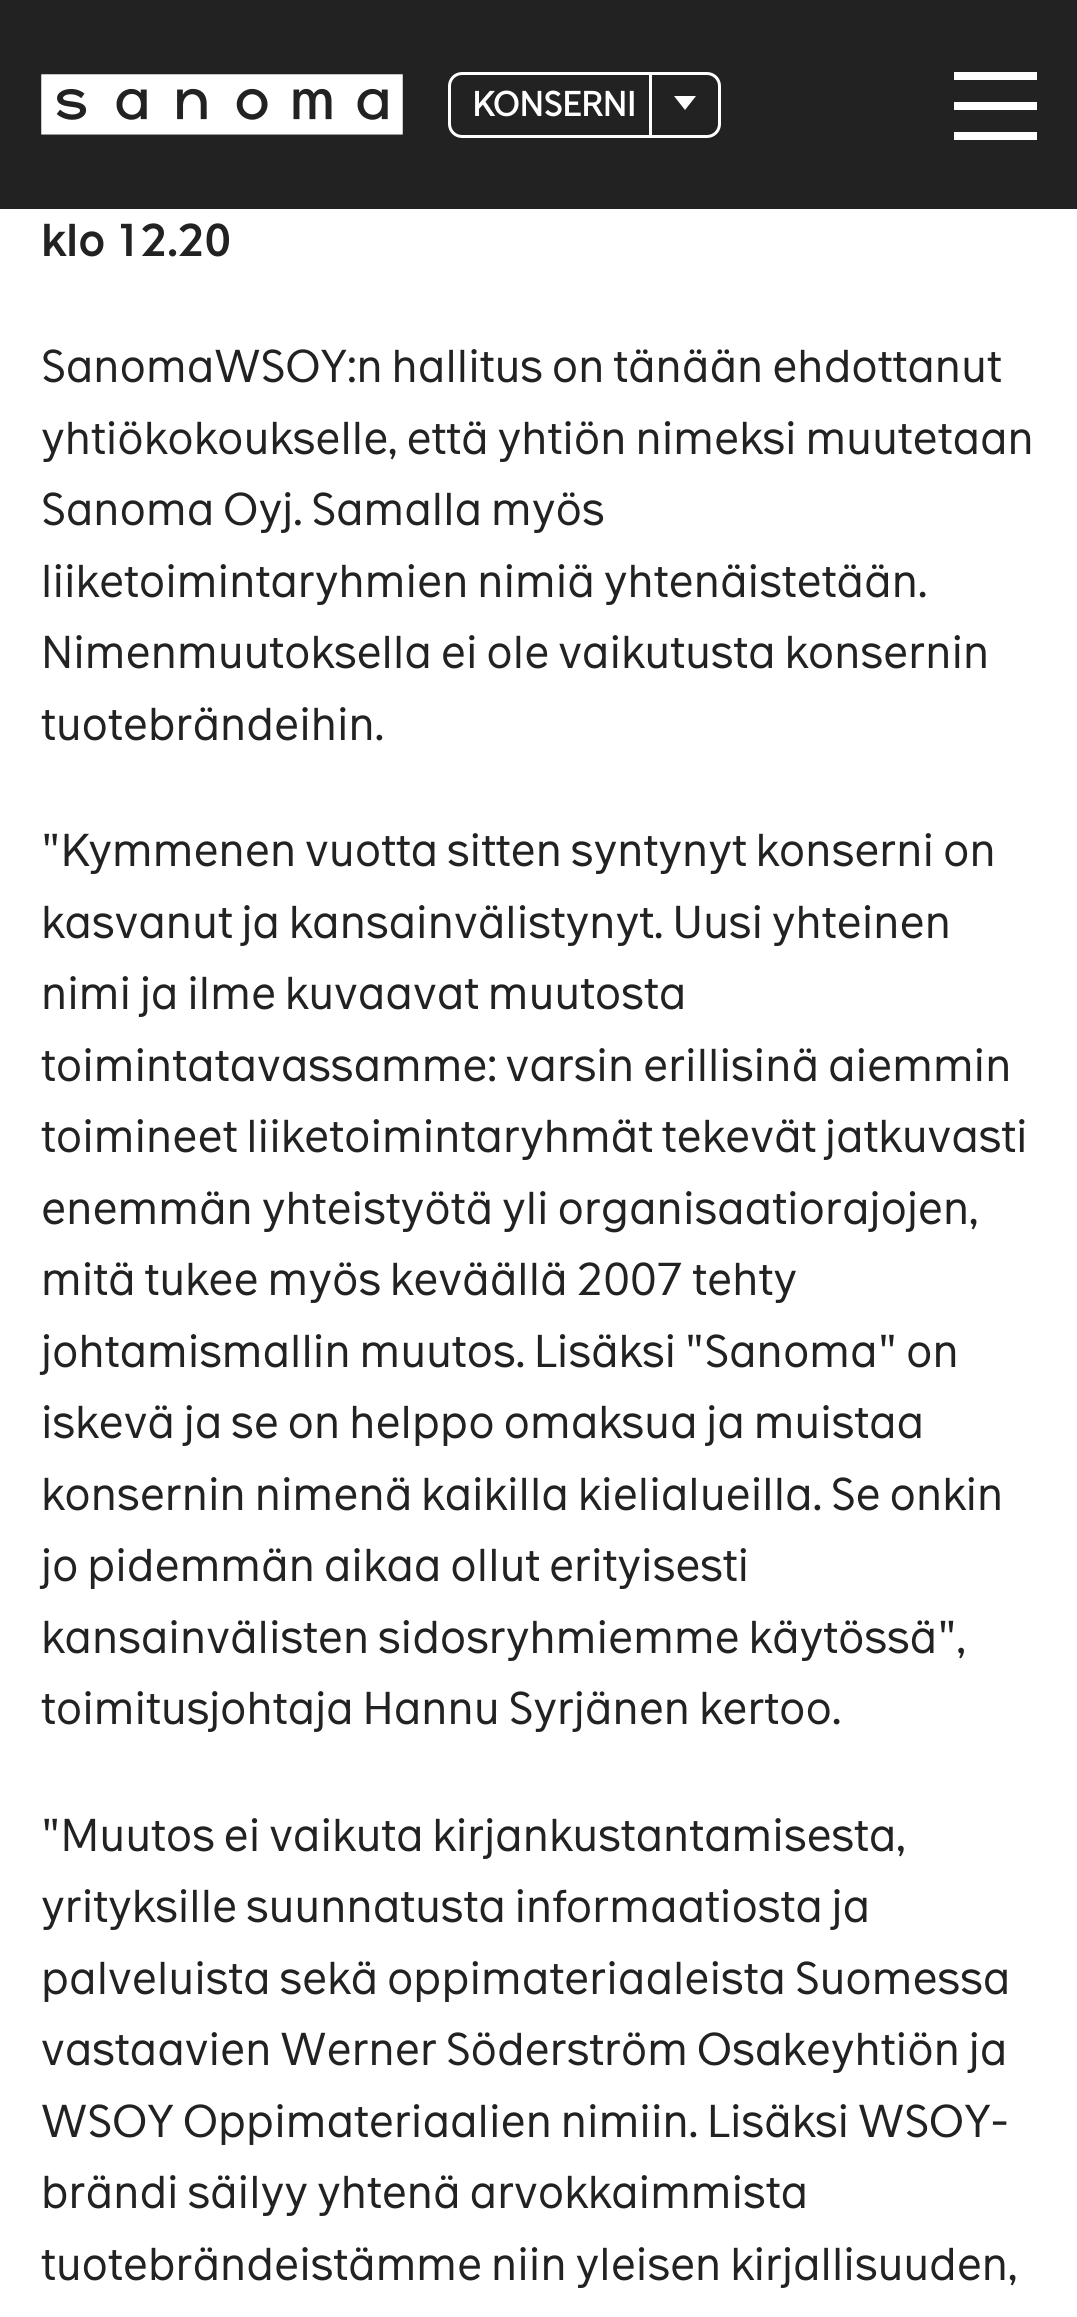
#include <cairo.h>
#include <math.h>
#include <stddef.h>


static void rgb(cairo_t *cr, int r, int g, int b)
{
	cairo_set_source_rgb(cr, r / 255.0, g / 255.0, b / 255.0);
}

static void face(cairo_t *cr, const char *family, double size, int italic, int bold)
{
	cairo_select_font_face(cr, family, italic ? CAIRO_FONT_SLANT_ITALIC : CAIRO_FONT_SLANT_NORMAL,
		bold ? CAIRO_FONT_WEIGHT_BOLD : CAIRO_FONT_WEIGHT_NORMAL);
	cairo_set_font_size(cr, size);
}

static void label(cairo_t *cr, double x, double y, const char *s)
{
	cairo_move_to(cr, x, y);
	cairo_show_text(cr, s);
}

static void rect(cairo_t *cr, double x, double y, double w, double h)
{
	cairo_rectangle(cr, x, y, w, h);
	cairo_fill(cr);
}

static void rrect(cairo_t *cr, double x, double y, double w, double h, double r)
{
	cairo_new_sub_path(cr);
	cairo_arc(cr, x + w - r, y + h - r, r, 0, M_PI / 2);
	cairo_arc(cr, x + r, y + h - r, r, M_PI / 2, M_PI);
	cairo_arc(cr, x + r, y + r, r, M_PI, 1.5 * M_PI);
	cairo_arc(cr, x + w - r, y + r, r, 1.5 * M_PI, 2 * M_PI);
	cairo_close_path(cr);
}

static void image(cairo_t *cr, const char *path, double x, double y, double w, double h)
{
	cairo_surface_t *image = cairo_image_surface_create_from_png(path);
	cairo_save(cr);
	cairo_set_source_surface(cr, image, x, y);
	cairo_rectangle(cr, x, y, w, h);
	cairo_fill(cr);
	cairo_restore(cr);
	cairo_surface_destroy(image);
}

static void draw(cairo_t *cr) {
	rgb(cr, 255, 255, 255);
	cairo_paint(cr);
	rgb(cr, 34, 34, 34);
	rect(cr, 0, 0, 1077, 209);
	image(cr, "image0.png", 41, 74, 362, 61);
	rrect(cr, 449.5, 73.5, 270, 63, 12.5);
	rgb(cr, 255, 255, 255);
	cairo_set_line_width(cr, 3);
	cairo_stroke(cr);
	face(cr, "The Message", 33, 0, 1);
	label(cr, 472, 116, "KONSERNI");
	rect(cr, 649, 74, 3, 61);
	cairo_new_path(cr);
	cairo_move_to(cr, 674, 96);
	cairo_line_to(cr, 696, 96);
	cairo_line_to(cr, 685, 110);
	cairo_close_path(cr);
	cairo_fill(cr);
	rect(cr, 954, 72, 83, 8);
	rect(cr, 954, 102, 83, 8);
	rect(cr, 954, 132, 83, 8);
	face(cr, "The Message SemiBold", 44, 0, 0);
	rgb(cr, 34, 34, 34);
	label(cr, 41, 256, "klo 12.20");
	face(cr, "The Message", 44, 0, 0);
	label(cr, 41, 382, "SanomaWSOY:n hallitus on tänään ehdottanut");
	label(cr, 41, 454, "yhtiökokoukselle, että yhtiön nimeksi muutetaan");
	label(cr, 41, 525, "Sanoma Oyj. Samalla myös");
	label(cr, 41, 597, "liiketoimintaryhmien nimiä yhtenäistetään.");
	label(cr, 41, 668, "Nimenmuutoksella ei ole vaikutusta konsernin");
	label(cr, 41, 740, "tuotebrändeihin.");
	label(cr, 41, 866, "\"Kymmenen vuotta sitten syntynyt konserni on");
	label(cr, 41, 938, "kasvanut ja kansainvälistynyt. Uusi yhteinen");
	label(cr, 41, 1009, "nimi ja ilme kuvaavat muutosta");
	label(cr, 41, 1081, "toimintatavassamme: varsin erillisinä aiemmin");
	label(cr, 41, 1152, "toimineet liiketoimintaryhmät tekevät jatkuvasti");
	label(cr, 41, 1224, "enemmän yhteistyötä yli organisaatiorajojen,");
	label(cr, 41, 1295, "mitä tukee myös keväällä 2007 tehty");
	label(cr, 41, 1367, "johtamismallin muutos. Lisäksi \"Sanoma\" on");
	label(cr, 41, 1438, "iskevä ja se on helppo omaksua ja muistaa");
	label(cr, 41, 1510, "konsernin nimenä kaikilla kielialueilla. Se onkin");
	label(cr, 41, 1581, "jo pidemmän aikaa ollut erityisesti");
	label(cr, 41, 1653, "kansainvälisten sidosryhmiemme käytössä\",");
	label(cr, 41, 1724, "toimitusjohtaja Hannu Syrjänen kertoo.");
	label(cr, 41, 1851, "\"Muutos ei vaikuta kirjankustantamisesta,");
	label(cr, 41, 1922, "yrityksille suunnatusta informaatiosta ja");
	label(cr, 41, 1994, "palveluista sekä oppimateriaaleista Suomessa");
	label(cr, 41, 2065, "vastaavien Werner Söderström Osakeyhtiön ja");
	label(cr, 41, 2137, "WSOY Oppimateriaalien nimiin. Lisäksi WSOY-");
	label(cr, 41, 2208, "brändi säilyy yhtenä arvokkaimmista");
	label(cr, 41, 2280, "tuotebrändeistämme niin yleisen kirjallisuuden,");
}

int main(void) {
	cairo_surface_t *surface = cairo_image_surface_create(CAIRO_FORMAT_RGB24, 1077, 2317);
	cairo_t *cr = cairo_create(surface);
	cairo_font_options_t *options = cairo_font_options_create();
	cairo_font_options_set_hint_metrics(options, CAIRO_HINT_METRICS_OFF);
	cairo_font_options_set_hint_style(options, CAIRO_HINT_STYLE_NONE);
	cairo_set_font_options(cr, options);
	cairo_set_miter_limit(cr, 4);
	draw(cr);
	cairo_surface_write_to_png(surface, "render.png");
	cairo_font_options_destroy(options);
	cairo_destroy(cr);
	cairo_surface_destroy(surface);
	return 0;
}
